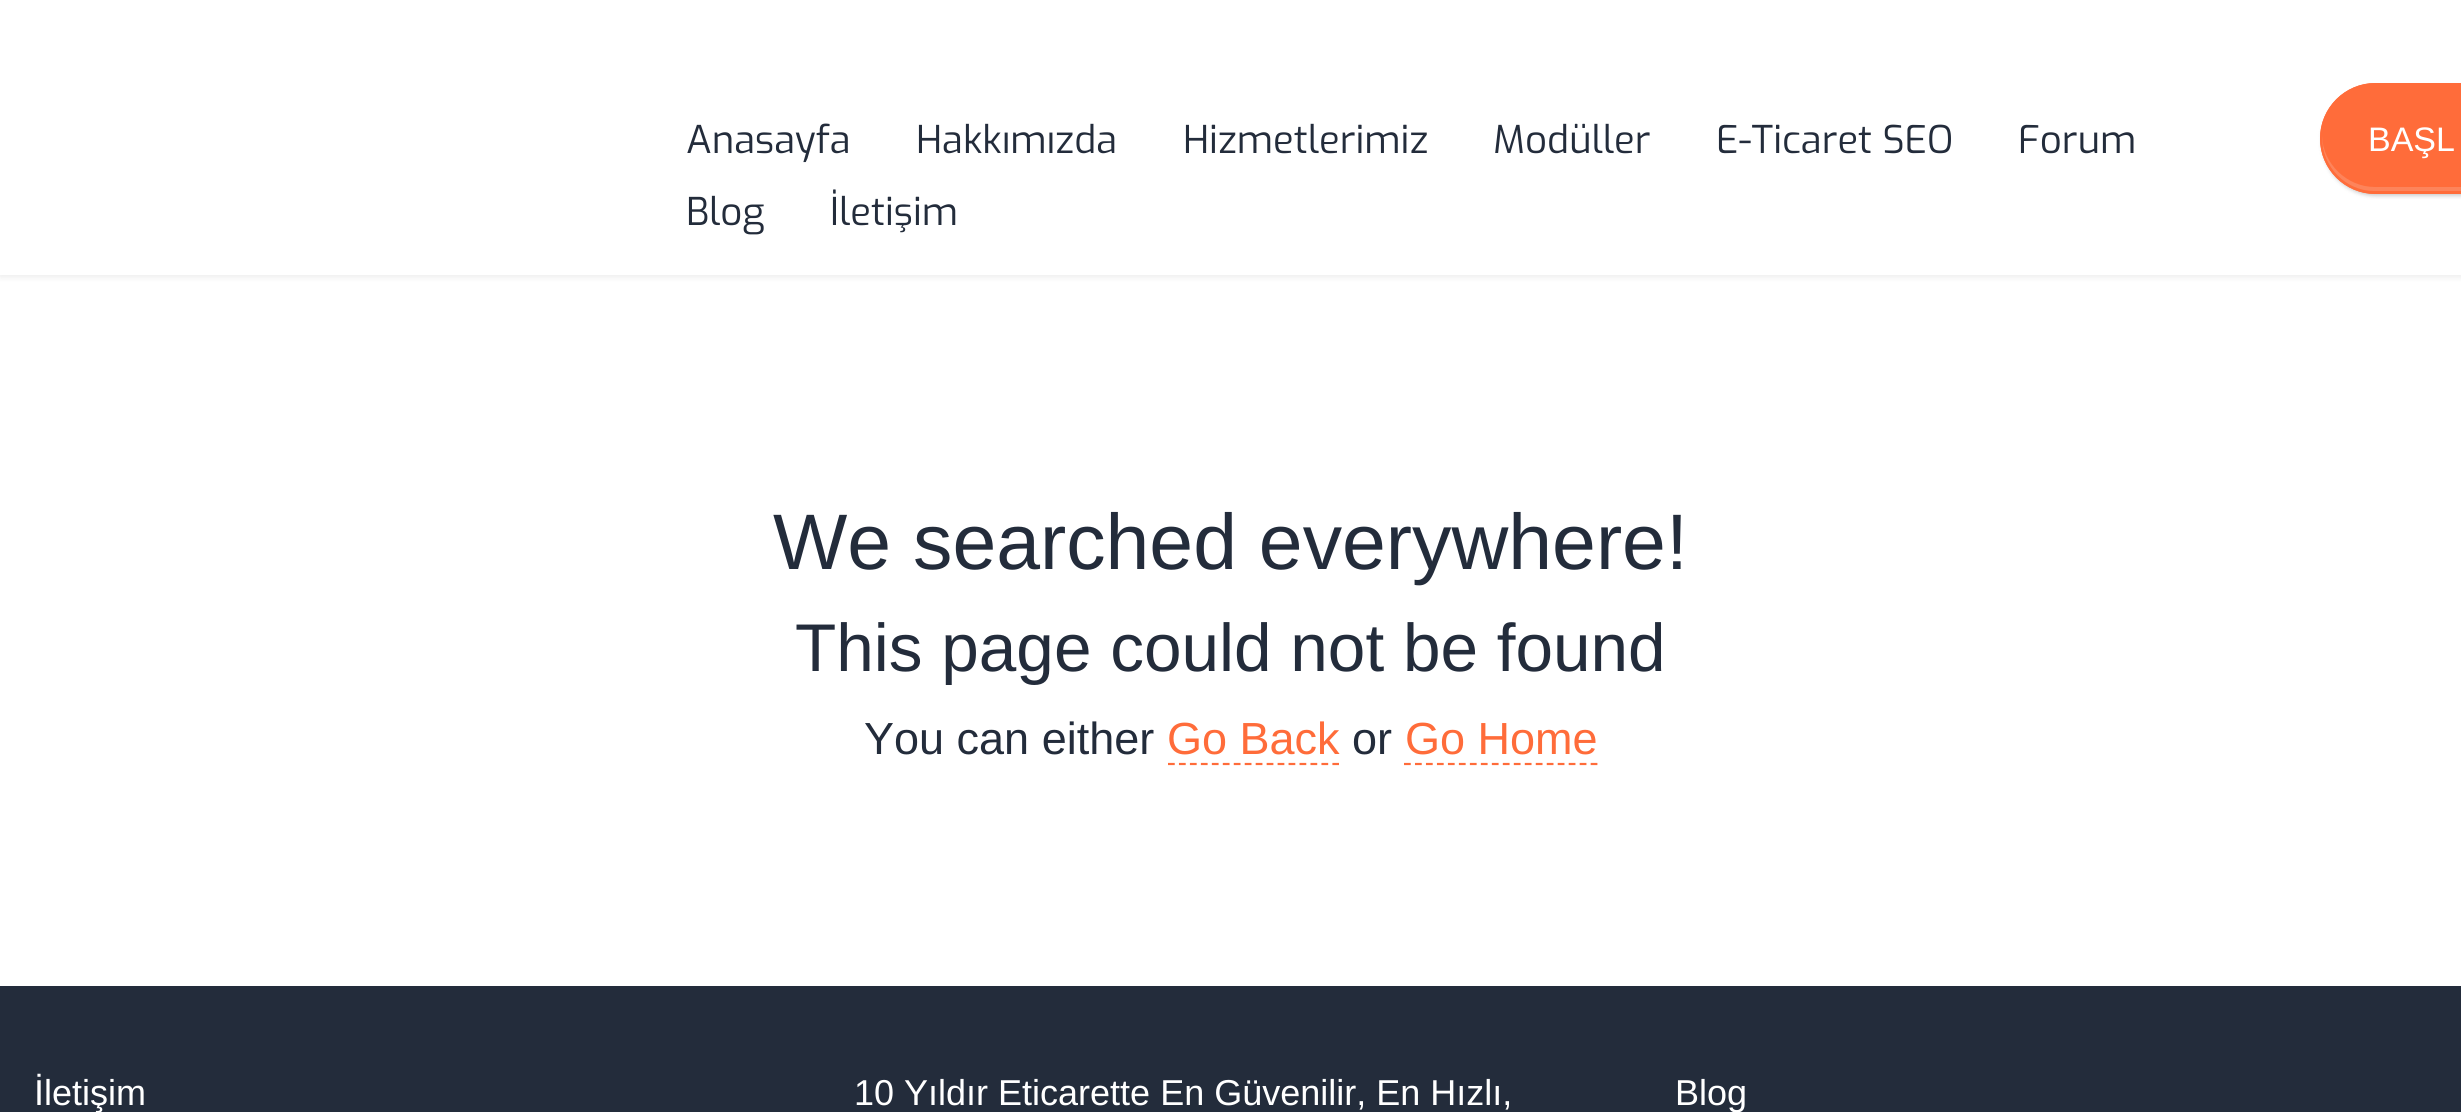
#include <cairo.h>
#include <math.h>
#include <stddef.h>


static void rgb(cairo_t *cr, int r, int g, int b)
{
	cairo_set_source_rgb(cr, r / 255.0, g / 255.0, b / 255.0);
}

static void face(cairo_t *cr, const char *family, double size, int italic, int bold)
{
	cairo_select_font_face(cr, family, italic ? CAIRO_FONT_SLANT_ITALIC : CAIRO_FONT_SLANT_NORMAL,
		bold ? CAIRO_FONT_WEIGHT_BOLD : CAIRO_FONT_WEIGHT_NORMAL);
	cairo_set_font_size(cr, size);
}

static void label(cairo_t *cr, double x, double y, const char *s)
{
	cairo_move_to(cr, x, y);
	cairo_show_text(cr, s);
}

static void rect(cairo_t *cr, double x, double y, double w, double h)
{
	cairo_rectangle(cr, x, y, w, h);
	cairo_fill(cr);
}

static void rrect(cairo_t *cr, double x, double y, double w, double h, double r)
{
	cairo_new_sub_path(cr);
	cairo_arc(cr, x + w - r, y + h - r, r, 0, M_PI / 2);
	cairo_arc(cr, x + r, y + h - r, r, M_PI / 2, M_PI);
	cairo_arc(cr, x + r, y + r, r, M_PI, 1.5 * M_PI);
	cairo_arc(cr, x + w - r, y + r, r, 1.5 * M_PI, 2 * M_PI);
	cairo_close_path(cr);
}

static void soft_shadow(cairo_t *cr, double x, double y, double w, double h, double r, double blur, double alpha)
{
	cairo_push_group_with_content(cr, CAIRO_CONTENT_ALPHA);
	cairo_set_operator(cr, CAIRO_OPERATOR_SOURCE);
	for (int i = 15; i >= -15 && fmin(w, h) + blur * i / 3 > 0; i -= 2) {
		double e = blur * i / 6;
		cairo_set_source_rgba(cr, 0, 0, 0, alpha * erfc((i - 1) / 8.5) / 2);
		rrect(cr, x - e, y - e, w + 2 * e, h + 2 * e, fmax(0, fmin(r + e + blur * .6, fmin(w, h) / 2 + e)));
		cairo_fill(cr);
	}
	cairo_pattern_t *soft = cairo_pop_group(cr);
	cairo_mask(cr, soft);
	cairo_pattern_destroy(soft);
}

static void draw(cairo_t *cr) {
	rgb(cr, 255, 255, 255);
	cairo_paint(cr);
	rgb(cr, 0, 0, 0);
	soft_shadow(cr, 0, 2, 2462, 275, 0, 3.5, 0.08);
	rgb(cr, 255, 255, 255);
	rect(cr, 0, 0, 2461, 275);
	face(cr, "Exo", 38.25, 0, 0);
	rgb(cr, 35, 44, 59);
	label(cr, 686, 153, "Anasayfa");
	label(cr, 916, 153, "Hakkımızda");
	label(cr, 1183, 153, "Hizmetlerimiz");
	label(cr, 1493, 153, "Modüller");
	label(cr, 1716, 153, "E-Ticaret SEO");
	label(cr, 2018, 153, "Forum");
	label(cr, 686, 225, "Blog");
	label(cr, 830, 225, "İletişim");
	rgb(cr, 0, 0, 0);
	soft_shadow(cr, 2322, 86, 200, 110, 55, 2, 0.2);
	rgb(cr, 255, 108, 58);
	rrect(cr, 2320, 83, 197, 111, 55.5);
	cairo_fill(cr);
	rgb(cr, 253, 132, 91);
	cairo_new_path(cr);
	cairo_move_to(cr, 2322, 136);
	cairo_line_to(cr, 2322, 138);
	cairo_curve_to(cr, 2322, 167, 2346, 191, 2374, 191);
	cairo_line_to(cr, 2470, 191);
	cairo_curve_to(cr, 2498, 191, 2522, 167, 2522, 138);
	cairo_line_to(cr, 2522, 136);
	cairo_curve_to(cr, 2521, 164, 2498, 187, 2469, 187);
	cairo_line_to(cr, 2375, 187);
	cairo_curve_to(cr, 2347, 187, 2323, 164, 2322, 136);
	cairo_close_path(cr);
	cairo_fill(cr);
	rrect(cr, 2321, 84, 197, 109, 54.5);
	rgb(cr, 255, 108, 58);
	cairo_stroke(cr);
	face(cr, "Liberation Sans", 34, 0, 0);
	rgb(cr, 255, 255, 255);
	label(cr, 2368, 151, "BAŞL");
	face(cr, "Liberation Sans", 78.75, 0, 0);
	rgb(cr, 35, 44, 59);
	label(cr, 773, 569, "We searched everywhere!");
	face(cr, "Liberation Sans", 67.5, 0, 0);
	label(cr, 795, 671, "This page could not be found");
	face(cr, "Liberation Sans", 45, 0, 0);
	label(cr, 864, 754, "You can either");
	rgb(cr, 255, 108, 58);
	label(cr, 1167, 754, "Go Back");
	cairo_new_path(cr);
	cairo_move_to(cr, 1168, 764);
	cairo_line_to(cr, 1339, 764);
	cairo_set_line_width(cr, 2.2);
	cairo_set_dash(cr, (double[]){6.75, 4.21}, 2, 0);
	cairo_stroke(cr);
	rgb(cr, 35, 44, 59);
	label(cr, 1352, 754, "or");
	rgb(cr, 255, 108, 58);
	label(cr, 1405, 754, "Go Home");
	cairo_new_path(cr);
	cairo_move_to(cr, 1404, 764);
	cairo_line_to(cr, 1597.5, 764);
	cairo_set_dash(cr, (double[]){6.75, 4.23}, 2, 0);
	cairo_stroke(cr);
	rgb(cr, 35, 44, 59);
	rect(cr, 0, 986, 2461, 126);
	face(cr, "Liberation Sans", 36, 0, 0);
	rgb(cr, 255, 255, 255);
	label(cr, 34, 1105, "İletişim");
	label(cr, 854, 1105, "10 Yıldır Eticarette En Güvenilir, En Hızlı,");
	label(cr, 1675, 1105, "Blog");
}

int main(void) {
	cairo_surface_t *surface = cairo_image_surface_create(CAIRO_FORMAT_RGB24, 2461, 1112);
	cairo_t *cr = cairo_create(surface);
	cairo_font_options_t *options = cairo_font_options_create();
	cairo_font_options_set_hint_metrics(options, CAIRO_HINT_METRICS_OFF);
	cairo_font_options_set_hint_style(options, CAIRO_HINT_STYLE_NONE);
	cairo_set_font_options(cr, options);
	cairo_set_miter_limit(cr, 4);
	draw(cr);
	cairo_surface_write_to_png(surface, "render.png");
	cairo_font_options_destroy(options);
	cairo_destroy(cr);
	cairo_surface_destroy(surface);
	return 0;
}
